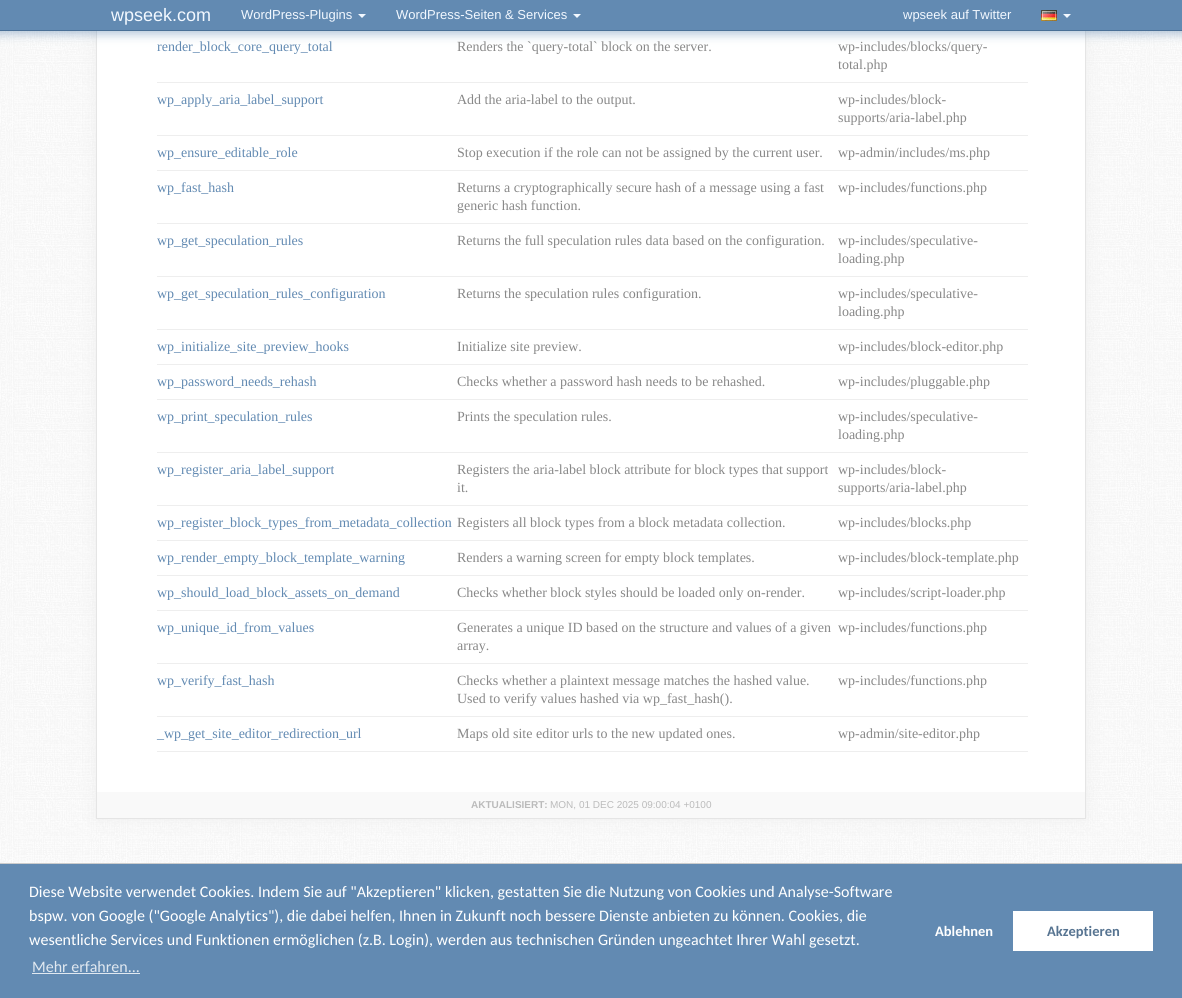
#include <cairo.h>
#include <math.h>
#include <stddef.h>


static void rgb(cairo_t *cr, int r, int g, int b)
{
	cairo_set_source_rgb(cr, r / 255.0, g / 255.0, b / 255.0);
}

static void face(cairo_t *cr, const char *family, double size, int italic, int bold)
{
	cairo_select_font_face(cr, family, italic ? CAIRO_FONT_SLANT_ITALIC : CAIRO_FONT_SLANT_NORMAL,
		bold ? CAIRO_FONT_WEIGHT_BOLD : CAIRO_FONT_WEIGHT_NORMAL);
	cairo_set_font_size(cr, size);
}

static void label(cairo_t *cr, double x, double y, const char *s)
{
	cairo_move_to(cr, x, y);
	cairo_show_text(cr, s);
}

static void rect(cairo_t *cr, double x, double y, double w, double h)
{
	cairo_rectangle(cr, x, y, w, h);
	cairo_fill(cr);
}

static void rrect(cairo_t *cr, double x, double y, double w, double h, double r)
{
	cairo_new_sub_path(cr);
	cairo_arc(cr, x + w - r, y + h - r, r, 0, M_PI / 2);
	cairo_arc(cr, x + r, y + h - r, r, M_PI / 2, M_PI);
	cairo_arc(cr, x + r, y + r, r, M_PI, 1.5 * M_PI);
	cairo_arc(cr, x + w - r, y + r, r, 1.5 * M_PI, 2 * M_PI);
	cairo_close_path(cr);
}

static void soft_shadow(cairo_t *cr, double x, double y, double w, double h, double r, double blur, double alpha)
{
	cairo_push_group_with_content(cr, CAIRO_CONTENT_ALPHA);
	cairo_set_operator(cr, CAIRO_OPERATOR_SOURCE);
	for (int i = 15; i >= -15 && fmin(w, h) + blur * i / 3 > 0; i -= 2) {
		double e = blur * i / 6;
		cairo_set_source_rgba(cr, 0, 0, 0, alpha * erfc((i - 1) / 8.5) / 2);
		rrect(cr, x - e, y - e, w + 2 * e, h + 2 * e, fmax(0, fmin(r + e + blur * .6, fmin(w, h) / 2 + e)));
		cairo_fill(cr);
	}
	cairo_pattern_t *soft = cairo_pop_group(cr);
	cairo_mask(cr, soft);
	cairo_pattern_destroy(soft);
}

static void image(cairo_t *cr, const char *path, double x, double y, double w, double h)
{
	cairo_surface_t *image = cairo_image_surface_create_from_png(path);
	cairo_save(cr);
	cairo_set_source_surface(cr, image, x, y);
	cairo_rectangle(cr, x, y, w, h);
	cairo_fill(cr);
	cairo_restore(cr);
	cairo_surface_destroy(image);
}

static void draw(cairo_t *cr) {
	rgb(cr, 255, 255, 255);
	cairo_paint(cr);
	image(cr, "image0.png", 0, 31, 1182, 832);
	rgb(cr, 238, 238, 238);
	soft_shadow(cr, 96, -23, 990, 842, 0, 7.5, 1);
	rgb(cr, 255, 255, 255);
	rect(cr, 97, 31, 988, 761);
	rgb(cr, 229, 229, 229);
	rect(cr, 1085, 31, 1, 788);
	rect(cr, 96, 818, 990, 1);
	rect(cr, 96, 31, 1, 788);
	rgb(cr, 98, 138, 178);
	soft_shadow(cr, -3, -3, 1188, 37, 0, 5, 0.5);
	rgb(cr, 98, 138, 178);
	rect(cr, 0, 0, 1182, 30);
	rgb(cr, 74, 112, 151);
	rect(cr, 0, 30, 1182, 1);
	face(cr, "Liberation Sans", 18, 0, 0);
	rgb(cr, 242, 248, 255);
	label(cr, 111, 21, "wpseek.com");
	face(cr, "Liberation Sans", 13, 0, 0);
	label(cr, 241, 19, "WordPress-Plugins");
	cairo_new_path(cr);
	cairo_move_to(cr, 358, 14);
	cairo_line_to(cr, 366, 14);
	cairo_line_to(cr, 362, 18);
	cairo_close_path(cr);
	cairo_fill(cr);
	label(cr, 396, 19, "WordPress-Seiten & Services");
	cairo_new_path(cr);
	cairo_move_to(cr, 573, 14);
	cairo_line_to(cr, 581, 14);
	cairo_line_to(cr, 577, 18);
	cairo_close_path(cr);
	cairo_fill(cr);
	label(cr, 903, 19, "wpseek auf Twitter");
	image(cr, "image1.png", 1041, 10, 16, 11);
	cairo_new_path(cr);
	cairo_move_to(cr, 1063, 14);
	cairo_line_to(cr, 1071, 14);
	cairo_line_to(cr, 1067, 18);
	cairo_close_path(cr);
	cairo_fill(cr);
	face(cr, "Liberation Serif", 14, 0, 0);
	rgb(cr, 98, 138, 178);
	label(cr, 157, 51, "render_block_core_query_total");
	rgb(cr, 136, 136, 136);
	label(cr, 457, 51, "Renders the `query-total` block on the server.");
	rgb(cr, 238, 238, 238);
	rect(cr, 157, 82, 871, 1);
	rgb(cr, 136, 136, 136);
	label(cr, 838, 51, "wp-includes/blocks/query-");
	label(cr, 838, 69, "total.php");
	rgb(cr, 98, 138, 178);
	label(cr, 157, 104, "wp_apply_aria_label_support");
	rgb(cr, 136, 136, 136);
	label(cr, 457, 104, "Add the aria-label to the output.");
	rgb(cr, 238, 238, 238);
	rect(cr, 157, 135, 871, 1);
	rgb(cr, 136, 136, 136);
	label(cr, 838, 104, "wp-includes/block-");
	label(cr, 838, 122, "supports/aria-label.php");
	rgb(cr, 98, 138, 178);
	label(cr, 157, 157, "wp_ensure_editable_role");
	rgb(cr, 136, 136, 136);
	label(cr, 457, 157, "Stop execution if the role can not be assigned by the current user.");
	rgb(cr, 238, 238, 238);
	rect(cr, 157, 170, 871, 1);
	rgb(cr, 136, 136, 136);
	label(cr, 838, 157, "wp-admin/includes/ms.php");
	rgb(cr, 98, 138, 178);
	label(cr, 157, 192, "wp_fast_hash");
	rgb(cr, 136, 136, 136);
	label(cr, 457, 192, "Returns a cryptographically secure hash of a message using a fast");
	label(cr, 457, 210, "generic hash function.");
	rgb(cr, 238, 238, 238);
	rect(cr, 157, 223, 871, 1);
	rgb(cr, 136, 136, 136);
	label(cr, 838, 192, "wp-includes/functions.php");
	rgb(cr, 98, 138, 178);
	label(cr, 157, 245, "wp_get_speculation_rules");
	rgb(cr, 136, 136, 136);
	label(cr, 457, 245, "Returns the full speculation rules data based on the configuration.");
	rgb(cr, 238, 238, 238);
	rect(cr, 157, 276, 871, 1);
	rgb(cr, 136, 136, 136);
	label(cr, 838, 245, "wp-includes/speculative-");
	label(cr, 838, 263, "loading.php");
	rgb(cr, 98, 138, 178);
	label(cr, 157, 298, "wp_get_speculation_rules_configuration");
	rgb(cr, 136, 136, 136);
	label(cr, 457, 298, "Returns the speculation rules configuration.");
	rgb(cr, 238, 238, 238);
	rect(cr, 157, 329, 871, 1);
	rgb(cr, 136, 136, 136);
	label(cr, 838, 298, "wp-includes/speculative-");
	label(cr, 838, 316, "loading.php");
	rgb(cr, 98, 138, 178);
	label(cr, 157, 351, "wp_initialize_site_preview_hooks");
	rgb(cr, 136, 136, 136);
	label(cr, 457, 351, "Initialize site preview.");
	rgb(cr, 238, 238, 238);
	rect(cr, 157, 364, 871, 1);
	rgb(cr, 136, 136, 136);
	label(cr, 838, 351, "wp-includes/block-editor.php");
	rgb(cr, 98, 138, 178);
	label(cr, 157, 386, "wp_password_needs_rehash");
	rgb(cr, 136, 136, 136);
	label(cr, 457, 386, "Checks whether a password hash needs to be rehashed.");
	rgb(cr, 238, 238, 238);
	rect(cr, 157, 399, 871, 1);
	rgb(cr, 136, 136, 136);
	label(cr, 838, 386, "wp-includes/pluggable.php");
	rgb(cr, 98, 138, 178);
	label(cr, 157, 421, "wp_print_speculation_rules");
	rgb(cr, 136, 136, 136);
	label(cr, 457, 421, "Prints the speculation rules.");
	rgb(cr, 238, 238, 238);
	rect(cr, 157, 452, 871, 1);
	rgb(cr, 136, 136, 136);
	label(cr, 838, 421, "wp-includes/speculative-");
	label(cr, 838, 439, "loading.php");
	rgb(cr, 98, 138, 178);
	label(cr, 157, 474, "wp_register_aria_label_support");
	rgb(cr, 136, 136, 136);
	label(cr, 457, 474, "Registers the aria-label block attribute for block types that support");
	label(cr, 457, 492, "it.");
	rgb(cr, 238, 238, 238);
	rect(cr, 157, 505, 871, 1);
	rgb(cr, 136, 136, 136);
	label(cr, 838, 474, "wp-includes/block-");
	label(cr, 838, 492, "supports/aria-label.php");
	rgb(cr, 98, 138, 178);
	label(cr, 157, 527, "wp_register_block_types_from_metadata_collection");
	rgb(cr, 136, 136, 136);
	label(cr, 457, 527, "Registers all block types from a block metadata collection.");
	rgb(cr, 238, 238, 238);
	rect(cr, 157, 540, 871, 1);
	rgb(cr, 136, 136, 136);
	label(cr, 838, 527, "wp-includes/blocks.php");
	rgb(cr, 98, 138, 178);
	label(cr, 157, 562, "wp_render_empty_block_template_warning");
	rgb(cr, 136, 136, 136);
	label(cr, 457, 562, "Renders a warning screen for empty block templates.");
	rgb(cr, 238, 238, 238);
	rect(cr, 157, 575, 871, 1);
	rgb(cr, 136, 136, 136);
	label(cr, 838, 562, "wp-includes/block-template.php");
	rgb(cr, 98, 138, 178);
	label(cr, 157, 597, "wp_should_load_block_assets_on_demand");
	rgb(cr, 136, 136, 136);
	label(cr, 457, 597, "Checks whether block styles should be loaded only on-render.");
	rgb(cr, 238, 238, 238);
	rect(cr, 157, 610, 871, 1);
	rgb(cr, 136, 136, 136);
	label(cr, 838, 597, "wp-includes/script-loader.php");
	rgb(cr, 98, 138, 178);
	label(cr, 157, 632, "wp_unique_id_from_values");
	rgb(cr, 136, 136, 136);
	label(cr, 457, 632, "Generates a unique ID based on the structure and values of a given");
	label(cr, 457, 650, "array.");
	rgb(cr, 238, 238, 238);
	rect(cr, 157, 663, 871, 1);
	rgb(cr, 136, 136, 136);
	label(cr, 838, 632, "wp-includes/functions.php");
	rgb(cr, 98, 138, 178);
	label(cr, 157, 685, "wp_verify_fast_hash");
	rgb(cr, 136, 136, 136);
	label(cr, 457, 685, "Checks whether a plaintext message matches the hashed value.");
	label(cr, 457, 703, "Used to verify values hashed via wp_fast_hash().");
	rgb(cr, 238, 238, 238);
	rect(cr, 157, 716, 871, 1);
	rgb(cr, 136, 136, 136);
	label(cr, 838, 685, "wp-includes/functions.php");
	rgb(cr, 98, 138, 178);
	label(cr, 157, 738, "_wp_get_site_editor_redirection_url");
	rgb(cr, 136, 136, 136);
	label(cr, 457, 738, "Maps old site editor urls to the new updated ones.");
	rgb(cr, 238, 238, 238);
	rect(cr, 157, 751, 871, 1);
	rgb(cr, 136, 136, 136);
	label(cr, 838, 738, "wp-admin/site-editor.php");
	rgb(cr, 249, 249, 249);
	rect(cr, 97, 792, 988, 26);
	face(cr, "Liberation Sans", 10, 0, 1);
	rgb(cr, 187, 187, 187);
	label(cr, 471, 808, "AKTUALISIERT:");
	face(cr, "Liberation Sans", 10, 0, 0);
	label(cr, 550, 808, "MON, 01 DEC 2025 09:00:04 +0100");
	rgb(cr, 98, 138, 178);
	rect(cr, 0, 864, 1182, 134);
	rgb(cr, 204, 204, 204);
	rect(cr, 0, 863, 1182, 1);
	face(cr, "Carlito", 16, 0, 0);
	rgb(cr, 255, 255, 255);
	label(cr, 29, 897, "Diese Website verwendet Cookies. Indem Sie auf \"Akzeptieren\" klicken, gestatten Sie die Nutzung von Cookies und Analyse-Software");
	label(cr, 29, 921, "bspw. von Google (\"Google Analytics\"), die dabei helfen, Ihnen in Zukunft noch bessere Dienste anbieten zu können. Cookies, die");
	label(cr, 29, 945, "wesentliche Services und Funktionen ermöglichen (z.B. Login), werden aus technischen Gründen ungeachtet Ihrer Wahl gesetzt.");
	rgb(cr, 224, 232, 240);
	label(cr, 32, 972, "Mehr erfahren...");
	rect(cr, 32, 973, 108, 1);
	face(cr, "Carlito", 14.5, 0, 1);
	rgb(cr, 255, 255, 255);
	label(cr, 935, 936, "Ablehnen");
	rect(cr, 1013, 911, 140, 40);
	rgb(cr, 87, 116, 145);
	label(cr, 1047, 936, "Akzeptieren");
}

int main(void) {
	cairo_surface_t *surface = cairo_image_surface_create(CAIRO_FORMAT_RGB24, 1182, 998);
	cairo_t *cr = cairo_create(surface);
	cairo_font_options_t *options = cairo_font_options_create();
	cairo_font_options_set_hint_metrics(options, CAIRO_HINT_METRICS_OFF);
	cairo_font_options_set_hint_style(options, CAIRO_HINT_STYLE_NONE);
	cairo_set_font_options(cr, options);
	cairo_set_miter_limit(cr, 4);
	draw(cr);
	cairo_surface_write_to_png(surface, "render.png");
	cairo_font_options_destroy(options);
	cairo_destroy(cr);
	cairo_surface_destroy(surface);
	return 0;
}
